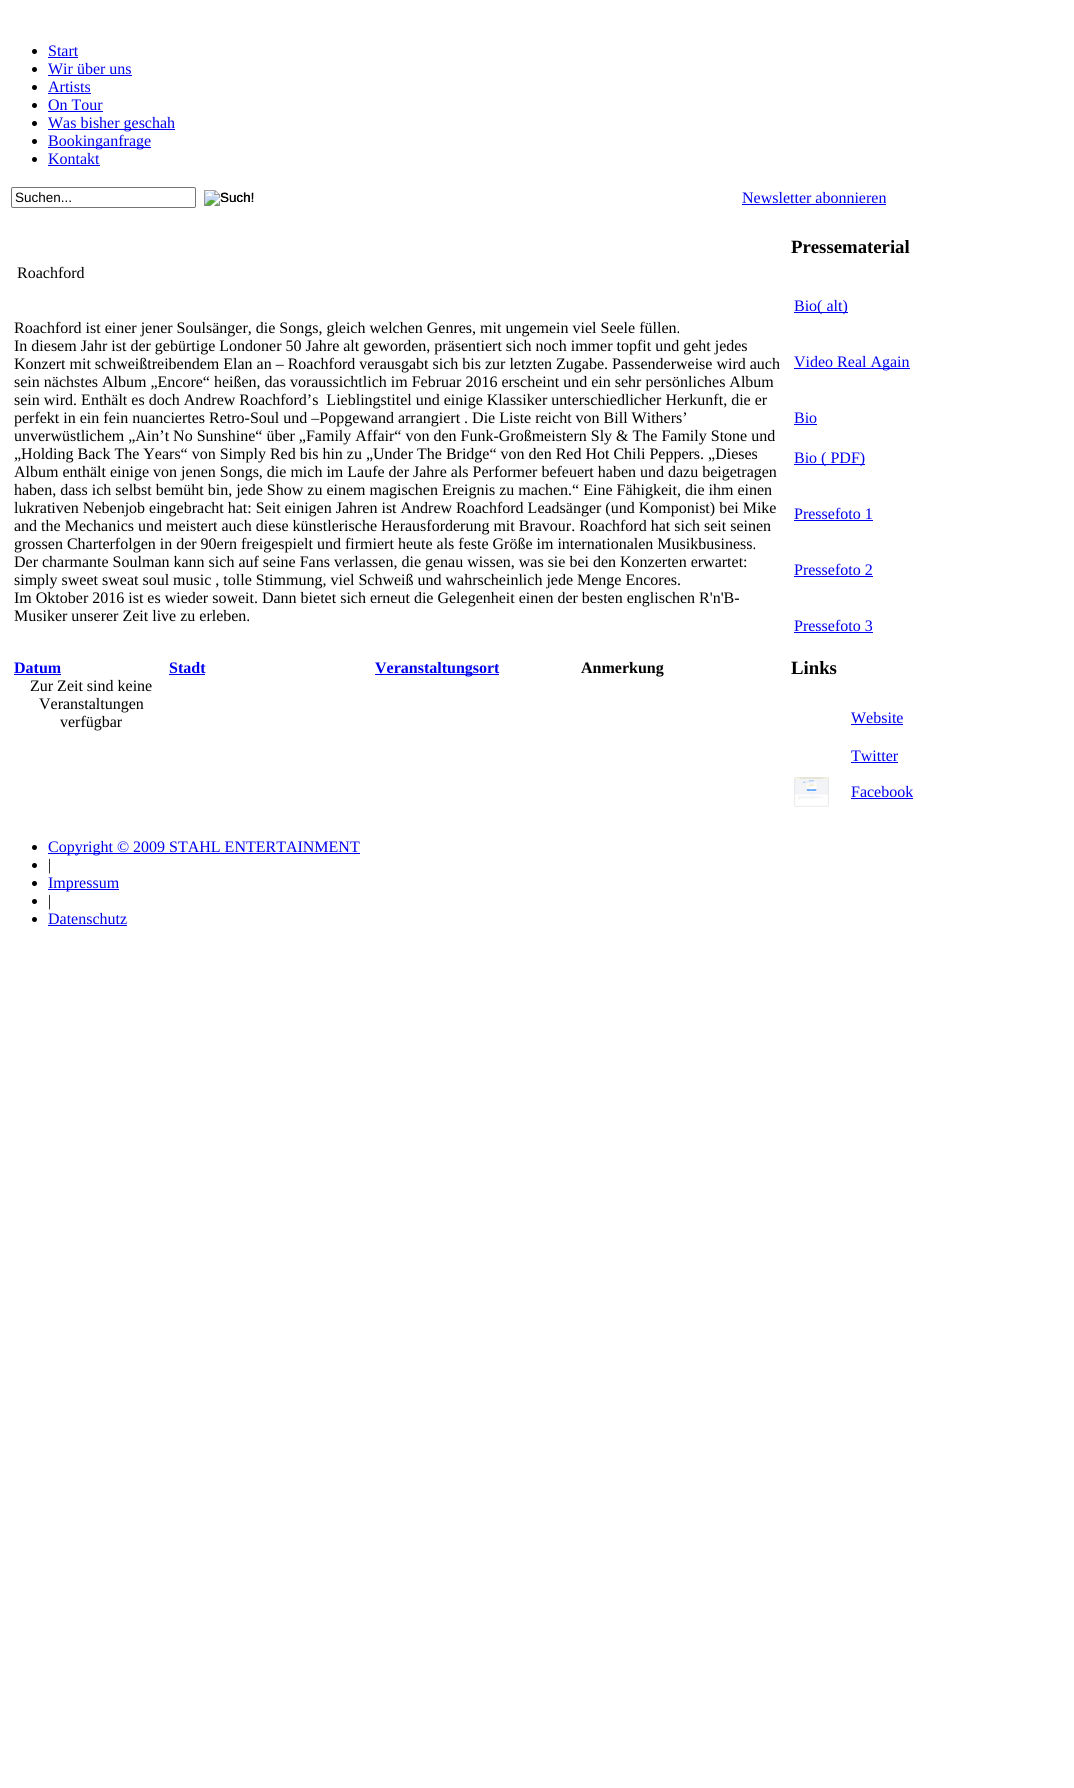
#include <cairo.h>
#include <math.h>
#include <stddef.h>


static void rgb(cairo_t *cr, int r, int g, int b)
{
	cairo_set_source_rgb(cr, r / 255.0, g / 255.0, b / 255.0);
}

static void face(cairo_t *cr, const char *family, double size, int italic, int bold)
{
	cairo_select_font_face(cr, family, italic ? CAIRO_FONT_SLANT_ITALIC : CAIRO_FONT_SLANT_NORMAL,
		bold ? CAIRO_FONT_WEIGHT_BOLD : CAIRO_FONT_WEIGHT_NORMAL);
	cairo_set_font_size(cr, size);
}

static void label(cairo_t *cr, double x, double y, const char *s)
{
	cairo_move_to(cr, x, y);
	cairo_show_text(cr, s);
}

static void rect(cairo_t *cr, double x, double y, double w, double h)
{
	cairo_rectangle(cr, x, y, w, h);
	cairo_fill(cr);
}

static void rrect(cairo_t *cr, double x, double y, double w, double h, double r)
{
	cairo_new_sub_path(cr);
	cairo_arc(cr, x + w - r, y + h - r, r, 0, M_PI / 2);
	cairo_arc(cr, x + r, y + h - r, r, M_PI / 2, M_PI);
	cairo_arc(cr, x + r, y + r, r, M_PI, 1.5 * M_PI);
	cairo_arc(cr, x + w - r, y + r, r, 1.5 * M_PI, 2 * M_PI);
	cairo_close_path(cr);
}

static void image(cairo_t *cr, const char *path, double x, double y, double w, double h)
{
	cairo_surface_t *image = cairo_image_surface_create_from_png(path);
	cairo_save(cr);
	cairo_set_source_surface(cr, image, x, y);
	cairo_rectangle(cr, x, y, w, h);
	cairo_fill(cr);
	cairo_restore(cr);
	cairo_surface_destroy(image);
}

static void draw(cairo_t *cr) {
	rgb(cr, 255, 255, 255);
	cairo_paint(cr);
	rgb(cr, 0, 0, 0);
	cairo_arc(cr, 34.5, 51.5, 2.5, 0, 2 * M_PI);
	cairo_fill(cr);
	face(cr, "Liberation Serif", 16, 0, 0);
	rgb(cr, 0, 0, 238);
	label(cr, 48, 56, "Start");
	rect(cr, 48, 57, 30, 1);
	rgb(cr, 0, 0, 0);
	cairo_new_path(cr);
	cairo_arc(cr, 34.5, 69.5, 2.5, 0, 2 * M_PI);
	cairo_fill(cr);
	rgb(cr, 0, 0, 238);
	label(cr, 48, 74, "Wir über uns");
	rect(cr, 48, 75, 84, 1);
	rgb(cr, 0, 0, 0);
	cairo_new_path(cr);
	cairo_arc(cr, 34.5, 87.5, 2.5, 0, 2 * M_PI);
	cairo_fill(cr);
	rgb(cr, 0, 0, 238);
	label(cr, 48, 92, "Artists");
	rect(cr, 48, 93, 43, 1);
	rgb(cr, 0, 0, 0);
	cairo_new_path(cr);
	cairo_arc(cr, 34.5, 105.5, 2.5, 0, 2 * M_PI);
	cairo_fill(cr);
	rgb(cr, 0, 0, 238);
	label(cr, 48, 110, "On Tour");
	rect(cr, 48, 111, 55, 1);
	rgb(cr, 0, 0, 0);
	cairo_new_path(cr);
	cairo_arc(cr, 34.5, 123.5, 2.5, 0, 2 * M_PI);
	cairo_fill(cr);
	rgb(cr, 0, 0, 238);
	rect(cr, 48, 129, 127, 1);
	label(cr, 48, 128, "Was bisher geschah");
	rgb(cr, 0, 0, 0);
	cairo_new_path(cr);
	cairo_arc(cr, 34.5, 141.5, 2.5, 0, 2 * M_PI);
	cairo_fill(cr);
	rgb(cr, 0, 0, 238);
	rect(cr, 48, 147, 103, 1);
	label(cr, 48, 146, "Bookinganfrage");
	rgb(cr, 0, 0, 0);
	cairo_new_path(cr);
	cairo_arc(cr, 34.5, 159.5, 2.5, 0, 2 * M_PI);
	cairo_fill(cr);
	rgb(cr, 0, 0, 238);
	label(cr, 48, 164, "Kontakt");
	rect(cr, 48, 165, 52, 1);
	rrect(cr, 11.5, 187.5, 184, 20, 1.5);
	rgb(cr, 118, 118, 118);
	cairo_set_line_width(cr, 1);
	cairo_stroke(cr);
	face(cr, "Liberation Sans", 13.5, 0, 0);
	rgb(cr, 0, 0, 0);
	label(cr, 15, 202, "Suchen...");
	image(cr, "image0.png", 204, 190, 49, 16);
	label(cr, 220, 202, "Such!");
	face(cr, "Liberation Serif", 16, 0, 0);
	rgb(cr, 0, 0, 238);
	label(cr, 742, 203, "Newsletter abonnieren");
	rect(cr, 742, 204, 144, 1);
	rgb(cr, 0, 0, 0);
	label(cr, 17, 278, "Roachford");
	label(cr, 14, 333, "Roachford ist einer jener Soulsänger, die Songs, gleich welchen Genres, mit ungemein viel Seele füllen.");
	label(cr, 14, 351, "In diesem Jahr ist der gebürtige Londoner 50 Jahre alt geworden, präsentiert sich noch immer topfit und geht jedes");
	label(cr, 14, 369, "Konzert mit schweißtreibendem Elan an – Roachford verausgabt sich bis zur letzten Zugabe. Passenderweise wird auch");
	label(cr, 14, 387, "sein nächstes Album „Encore“ heißen, das voraussichtlich im Februar 2016 erscheint und ein sehr persönliches Album");
	label(cr, 14, 405, "sein wird. Enthält es doch Andrew Roachford’s  Lieblingstitel und einige Klassiker unterschiedlicher Herkunft, die er");
	label(cr, 14, 423, "perfekt in ein fein nuanciertes Retro-Soul und –Popgewand arrangiert . Die Liste reicht von Bill Withers’");
	label(cr, 14, 441, "unverwüstlichem „Ain’t No Sunshine“ über „Family Affair“ von den Funk-Großmeistern Sly & The Family Stone und");
	label(cr, 14, 459, "„Holding Back The Years“ von Simply Red bis hin zu „Under The Bridge“ von den Red Hot Chili Peppers. „Dieses");
	label(cr, 14, 477, "Album enthält einige von jenen Songs, die mich im Laufe der Jahre als Performer befeuert haben und dazu beigetragen");
	label(cr, 14, 495, "haben, dass ich selbst bemüht bin, jede Show zu einem magischen Ereignis zu machen.“ Eine Fähigkeit, die ihm einen");
	label(cr, 14, 513, "lukrativen Nebenjob eingebracht hat: Seit einigen Jahren ist Andrew Roachford Leadsänger (und Komponist) bei Mike");
	label(cr, 14, 531, "and the Mechanics und meistert auch diese künstlerische Herausforderung mit Bravour. Roachford hat sich seit seinen");
	label(cr, 14, 549, "grossen Charterfolgen in der 90ern freigespielt und firmiert heute als feste Größe im internationalen Musikbusiness.");
	label(cr, 14, 567, "Der charmante Soulman kann sich auf seine Fans verlassen, die genau wissen, was sie bei den Konzerten erwartet:");
	label(cr, 14, 585, "simply sweet sweat soul music , tolle Stimmung, viel Schweiß und wahrscheinlich jede Menge Encores.");
	label(cr, 14, 603, "Im Oktober 2016 ist es wieder soweit. Dann bietet sich erneut die Gelegenheit einen der besten englischen R'n'B-");
	label(cr, 14, 621, "Musiker unserer Zeit live zu erleben.");
	face(cr, "Liberation Serif", 16, 0, 1);
	rgb(cr, 0, 0, 238);
	label(cr, 14, 673, "Datum");
	rect(cr, 14, 674, 47, 1);
	label(cr, 169, 673, "Stadt");
	rect(cr, 169, 674, 36, 1);
	rect(cr, 375, 674, 124, 1);
	label(cr, 375, 673, "Veranstaltungsort");
	rgb(cr, 0, 0, 0);
	label(cr, 581, 673, "Anmerkung");
	face(cr, "Liberation Serif", 16, 0, 0);
	label(cr, 30, 691, "Zur Zeit sind keine");
	label(cr, 39, 709, "Veranstaltungen");
	label(cr, 60, 727, "verfügbar");
	face(cr, "Liberation Serif", 18.75, 0, 1);
	label(cr, 791, 253, "Pressematerial");
	rgb(cr, 0, 0, 238);
	rect(cr, 794, 312, 54, 1);
	face(cr, "Liberation Serif", 16, 0, 0);
	label(cr, 794, 311, "Bio( alt)");
	rect(cr, 794, 368, 116, 1);
	label(cr, 794, 367, "Video Real Again");
	label(cr, 794, 423, "Bio");
	rect(cr, 794, 424, 23, 1);
	rect(cr, 794, 464, 71, 1);
	label(cr, 794, 463, "Bio ( PDF)");
	label(cr, 794, 519, "Pressefoto 1");
	rect(cr, 794, 520, 79, 1);
	label(cr, 794, 575, "Pressefoto 2");
	rect(cr, 794, 576, 79, 1);
	label(cr, 794, 631, "Pressefoto 3");
	rect(cr, 794, 632, 79, 1);
	face(cr, "Liberation Serif", 18.75, 0, 1);
	rgb(cr, 0, 0, 0);
	label(cr, 791, 674, "Links");
	face(cr, "Liberation Serif", 16, 0, 0);
	rgb(cr, 0, 0, 238);
	label(cr, 851, 723, "Website");
	rect(cr, 851, 724, 52, 1);
	label(cr, 851, 761, "Twitter");
	rect(cr, 851, 762, 47, 1);
	image(cr, "image1.png", 794, 777, 35, 30);
	label(cr, 851, 797, "Facebook");
	rect(cr, 851, 798, 62, 1);
	rgb(cr, 0, 0, 0);
	cairo_new_path(cr);
	cairo_arc(cr, 34.5, 847.5, 2.5, 0, 2 * M_PI);
	cairo_fill(cr);
	rgb(cr, 0, 0, 238);
	rect(cr, 48, 853, 312, 1);
	label(cr, 48, 852, "Copyright © 2009 STAHL ENTERTAINMENT");
	rgb(cr, 0, 0, 0);
	cairo_new_path(cr);
	cairo_arc(cr, 34.5, 865.5, 2.5, 0, 2 * M_PI);
	cairo_fill(cr);
	label(cr, 48, 870, "|");
	cairo_new_path(cr);
	cairo_arc(cr, 34.5, 883.5, 2.5, 0, 2 * M_PI);
	cairo_fill(cr);
	rgb(cr, 0, 0, 238);
	rect(cr, 48, 889, 71, 1);
	label(cr, 48, 888, "Impressum");
	rgb(cr, 0, 0, 0);
	cairo_new_path(cr);
	cairo_arc(cr, 34.5, 901.5, 2.5, 0, 2 * M_PI);
	cairo_fill(cr);
	label(cr, 48, 906, "|");
	cairo_new_path(cr);
	cairo_arc(cr, 34.5, 919.5, 2.5, 0, 2 * M_PI);
	cairo_fill(cr);
	rgb(cr, 0, 0, 238);
	label(cr, 48, 924, "Datenschutz");
	rect(cr, 48, 925, 79, 1);
}

int main(void) {
	cairo_surface_t *surface = cairo_image_surface_create(CAIRO_FORMAT_RGB24, 1074, 1788);
	cairo_t *cr = cairo_create(surface);
	cairo_font_options_t *options = cairo_font_options_create();
	cairo_font_options_set_hint_metrics(options, CAIRO_HINT_METRICS_OFF);
	cairo_font_options_set_hint_style(options, CAIRO_HINT_STYLE_NONE);
	cairo_set_font_options(cr, options);
	cairo_set_miter_limit(cr, 4);
	draw(cr);
	cairo_surface_write_to_png(surface, "render.png");
	cairo_font_options_destroy(options);
	cairo_destroy(cr);
	cairo_surface_destroy(surface);
	return 0;
}
